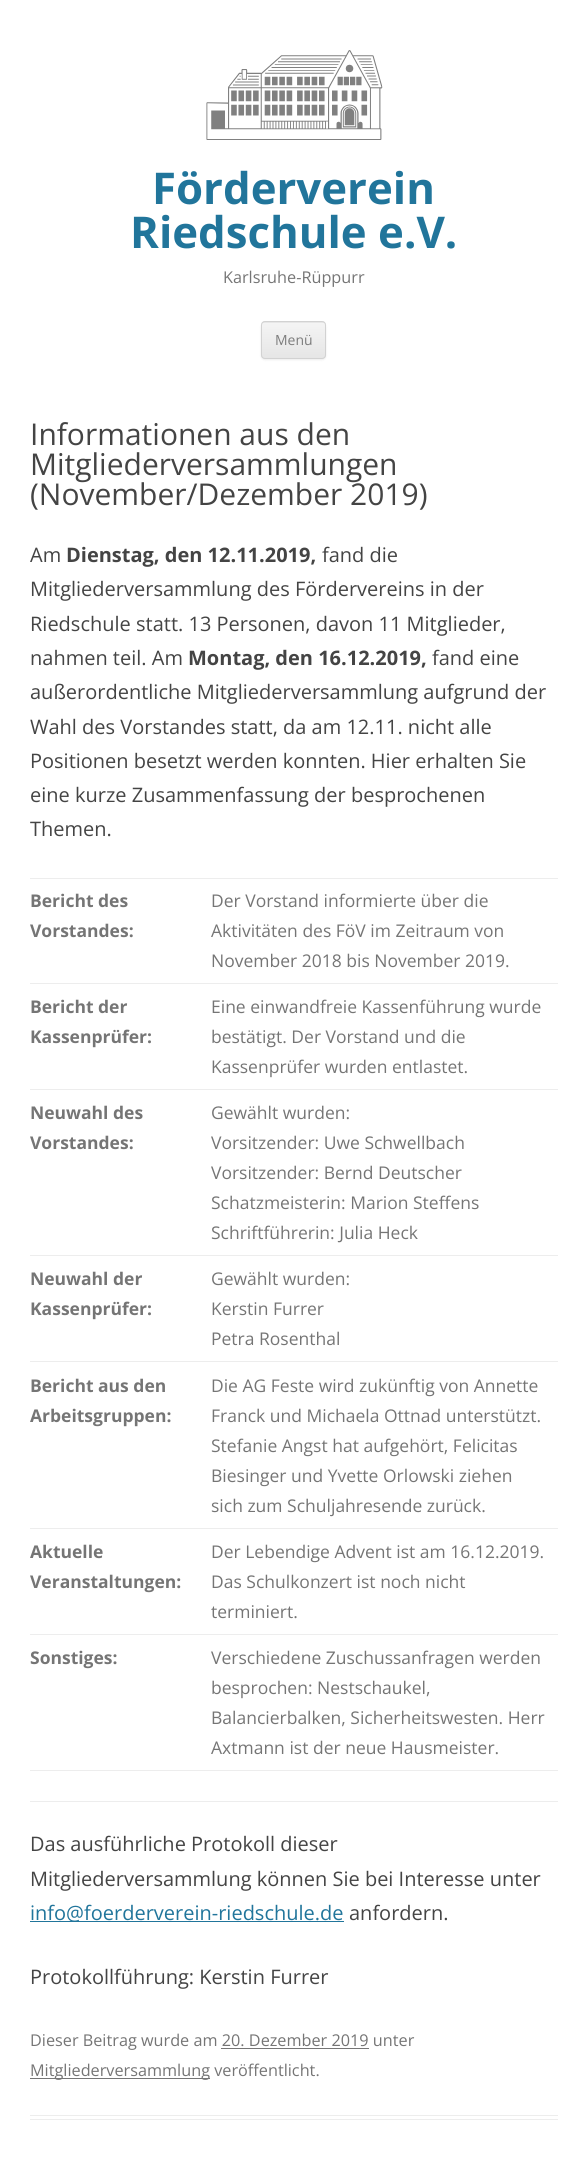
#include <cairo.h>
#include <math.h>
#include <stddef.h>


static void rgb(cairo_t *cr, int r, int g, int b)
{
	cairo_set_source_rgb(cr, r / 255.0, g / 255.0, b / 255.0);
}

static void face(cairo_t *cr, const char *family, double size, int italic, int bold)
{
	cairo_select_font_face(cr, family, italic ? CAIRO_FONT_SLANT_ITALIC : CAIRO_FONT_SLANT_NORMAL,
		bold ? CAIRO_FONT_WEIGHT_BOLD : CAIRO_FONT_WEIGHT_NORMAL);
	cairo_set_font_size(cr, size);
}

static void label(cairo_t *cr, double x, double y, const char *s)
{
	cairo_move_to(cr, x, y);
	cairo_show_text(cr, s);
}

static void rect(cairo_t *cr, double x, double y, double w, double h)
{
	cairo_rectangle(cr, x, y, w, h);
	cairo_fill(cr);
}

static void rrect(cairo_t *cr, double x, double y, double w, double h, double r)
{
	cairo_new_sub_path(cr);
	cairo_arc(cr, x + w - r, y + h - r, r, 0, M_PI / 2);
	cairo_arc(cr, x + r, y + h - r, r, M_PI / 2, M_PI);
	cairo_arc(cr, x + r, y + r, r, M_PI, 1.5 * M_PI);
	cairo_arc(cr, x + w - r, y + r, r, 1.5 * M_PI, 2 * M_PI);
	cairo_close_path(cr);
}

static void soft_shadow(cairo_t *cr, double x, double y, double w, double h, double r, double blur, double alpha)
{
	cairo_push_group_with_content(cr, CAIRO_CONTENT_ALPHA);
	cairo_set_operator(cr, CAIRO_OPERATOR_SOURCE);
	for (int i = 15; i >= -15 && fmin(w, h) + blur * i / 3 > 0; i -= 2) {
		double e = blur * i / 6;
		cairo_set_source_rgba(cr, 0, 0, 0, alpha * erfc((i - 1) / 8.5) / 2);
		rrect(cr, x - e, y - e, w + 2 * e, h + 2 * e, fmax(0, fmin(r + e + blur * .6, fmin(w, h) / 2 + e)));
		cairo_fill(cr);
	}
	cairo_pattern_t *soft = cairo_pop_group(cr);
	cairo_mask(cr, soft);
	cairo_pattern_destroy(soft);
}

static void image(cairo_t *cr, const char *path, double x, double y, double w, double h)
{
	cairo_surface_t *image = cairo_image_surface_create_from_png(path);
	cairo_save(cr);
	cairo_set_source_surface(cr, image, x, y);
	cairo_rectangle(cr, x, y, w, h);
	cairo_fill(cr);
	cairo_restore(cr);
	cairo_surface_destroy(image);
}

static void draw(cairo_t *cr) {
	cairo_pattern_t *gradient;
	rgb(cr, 255, 255, 255);
	cairo_paint(cr);
	image(cr, "image0.png", 206, 50, 177, 90);
	face(cr, "Open Sans", 43.75, 0, 1);
	rgb(cr, 33, 117, 155);
	label(cr, 152, 204, "Förderverein");
	label(cr, 130, 248, "Riedschule e.V.");
	face(cr, "Open Sans", 16.25, 0, 0);
	rgb(cr, 117, 117, 117);
	label(cr, 223, 283, "Karlsruhe-Rüppurr");
	rgb(cr, 64, 64, 64);
	soft_shadow(cr, 261, 323, 65, 37, 4, 1, 0.1);
	rgb(cr, 230, 230, 230);
	rrect(cr, 261, 321, 65, 38, 4);
	cairo_fill(cr);
	cairo_save(cr);
	rrect(cr, 261, 321, 65, 38, 4);
	cairo_clip(cr);
	gradient = cairo_pattern_create_linear(294, 323, 294, 358);
	cairo_pattern_add_color_stop_rgba(gradient, 0, 0.957, 0.957, 0.957, 1);
	cairo_pattern_add_color_stop_rgba(gradient, 1, 0.902, 0.902, 0.902, 1);
	cairo_set_source(cr, gradient);
	cairo_pattern_destroy(gradient);
	rect(cr, 261, 323, 65, 35);
	cairo_restore(cr);
	rrect(cr, 261.5, 321.5, 64, 37, 3.5);
	rgb(cr, 210, 210, 210);
	cairo_set_line_width(cr, 1);
	cairo_stroke(cr);
	face(cr, "Open Sans", 14, 0, 0);
	rgb(cr, 124, 124, 124);
	label(cr, 275, 345, "Menü");
	rgb(cr, 237, 237, 237);
	rect(cr, 30, 2115, 528, 1);
	rect(cr, 30, 2119, 528, 1);
	face(cr, "Open Sans", 30, 0, 0);
	rgb(cr, 68, 68, 68);
	label(cr, 30, 445, "Informationen aus den");
	label(cr, 30, 475, "Mitgliederversammlungen");
	label(cr, 30, 505, "(November/Dezember 2019)");
	face(cr, "Open Sans", 20, 0, 0);
	label(cr, 30, 562, "Am");
	face(cr, "Open Sans", 20, 0, 1);
	label(cr, 66, 562, "Dienstag, den 12.11.2019,");
	face(cr, "Open Sans", 20, 0, 0);
	label(cr, 322, 562, "fand die");
	label(cr, 30, 596, "Mitgliederversammlung des Fördervereins in der");
	label(cr, 30, 631, "Riedschule statt. 13 Personen, davon 11 Mitglieder,");
	label(cr, 30, 665, "nahmen teil. Am");
	face(cr, "Open Sans", 20, 0, 1);
	label(cr, 188, 665, "Montag, den 16.12.2019,");
	face(cr, "Open Sans", 20, 0, 0);
	label(cr, 432, 665, "fand eine");
	label(cr, 30, 699, "außerordentliche Mitgliederversammlung aufgrund der");
	label(cr, 30, 734, "Wahl des Vorstandes statt, da am 12.11. nicht alle");
	label(cr, 30, 768, "Positionen besetzt werden konnten. Hier erhalten Sie");
	label(cr, 30, 802, "eine kurze Zusammenfassung der besprochenen");
	label(cr, 30, 836, "Themen.");
	rgb(cr, 237, 237, 237);
	rect(cr, 30, 1801, 528, 1);
	rect(cr, 30, 1770, 528, 1);
	face(cr, "Open Sans", 17.5, 0, 1);
	rgb(cr, 117, 117, 117);
	label(cr, 30, 907, "Bericht des");
	label(cr, 30, 937, "Vorstandes:");
	rgb(cr, 237, 237, 237);
	rect(cr, 30, 878, 528, 1);
	face(cr, "Open Sans", 17.5, 0, 0);
	rgb(cr, 117, 117, 117);
	label(cr, 211, 907, "Der Vorstand informierte über die");
	label(cr, 211, 937, "Aktivitäten des FöV im Zeitraum von");
	label(cr, 211, 967, "November 2018 bis November 2019.");
	face(cr, "Open Sans", 17.5, 0, 1);
	label(cr, 30, 1013, "Bericht der");
	label(cr, 30, 1043, "Kassenprüfer:");
	rgb(cr, 237, 237, 237);
	rect(cr, 30, 983, 528, 1);
	face(cr, "Open Sans", 17.5, 0, 0);
	rgb(cr, 117, 117, 117);
	label(cr, 211, 1013, "Eine einwandfreie Kassenführung wurde");
	label(cr, 211, 1043, "bestätigt. Der Vorstand und die");
	label(cr, 211, 1073, "Kassenprüfer wurden entlastet.");
	face(cr, "Open Sans", 17.5, 0, 1);
	label(cr, 30, 1119, "Neuwahl des");
	label(cr, 30, 1149, "Vorstandes:");
	rgb(cr, 237, 237, 237);
	rect(cr, 30, 1089, 528, 1);
	face(cr, "Open Sans", 17.5, 0, 0);
	rgb(cr, 117, 117, 117);
	label(cr, 211, 1119, "Gewählt wurden:");
	label(cr, 211, 1149, "Vorsitzender: Uwe Schwellbach");
	label(cr, 211, 1179, "Vorsitzender: Bernd Deutscher");
	label(cr, 211, 1209, "Schatzmeisterin: Marion Steffens");
	label(cr, 211, 1239, "Schriftführerin: Julia Heck");
	face(cr, "Open Sans", 17.5, 0, 1);
	label(cr, 30, 1285, "Neuwahl der");
	label(cr, 30, 1315, "Kassenprüfer:");
	rgb(cr, 237, 237, 237);
	rect(cr, 30, 1255, 528, 1);
	face(cr, "Open Sans", 17.5, 0, 0);
	rgb(cr, 117, 117, 117);
	label(cr, 211, 1285, "Gewählt wurden:");
	label(cr, 211, 1315, "Kerstin Furrer");
	label(cr, 211, 1345, "Petra Rosenthal");
	face(cr, "Open Sans", 17.5, 0, 1);
	label(cr, 30, 1392, "Bericht aus den");
	label(cr, 30, 1422, "Arbeitsgruppen:");
	rgb(cr, 237, 237, 237);
	rect(cr, 30, 1361, 528, 1);
	face(cr, "Open Sans", 17.5, 0, 0);
	rgb(cr, 117, 117, 117);
	label(cr, 211, 1392, "Die AG Feste wird zukünftig von Annette");
	label(cr, 211, 1422, "Franck und Michaela Ottnad unterstützt.");
	label(cr, 211, 1452, "Stefanie Angst hat aufgehört, Felicitas");
	label(cr, 211, 1482, "Biesinger und Yvette Orlowski ziehen");
	label(cr, 211, 1512, "sich zum Schuljahresende zurück.");
	face(cr, "Open Sans", 17.5, 0, 1);
	label(cr, 30, 1558, "Aktuelle");
	label(cr, 30, 1588, "Veranstaltungen:");
	rgb(cr, 237, 237, 237);
	rect(cr, 30, 1528, 528, 1);
	face(cr, "Open Sans", 17.5, 0, 0);
	rgb(cr, 117, 117, 117);
	label(cr, 211, 1558, "Der Lebendige Advent ist am 16.12.2019.");
	label(cr, 211, 1588, "Das Schulkonzert ist noch nicht");
	label(cr, 211, 1618, "terminiert.");
	face(cr, "Open Sans", 17.5, 0, 1);
	label(cr, 30, 1664, "Sonstiges:");
	rgb(cr, 237, 237, 237);
	rect(cr, 30, 1634, 528, 1);
	face(cr, "Open Sans", 17.5, 0, 0);
	rgb(cr, 117, 117, 117);
	label(cr, 211, 1664, "Verschiedene Zuschussanfragen werden");
	label(cr, 211, 1694, "besprochen: Nestschaukel,");
	label(cr, 211, 1724, "Balancierbalken, Sicherheitswesten. Herr");
	label(cr, 211, 1754, "Axtmann ist der neue Hausmeister.");
	face(cr, "Open Sans", 20, 0, 0);
	rgb(cr, 68, 68, 68);
	label(cr, 30, 1851, "Das ausführliche Protokoll dieser");
	label(cr, 30, 1886, "Mitgliederversammlung können Sie bei Interesse unter");
	rgb(cr, 33, 117, 155);
	rect(cr, 30, 1921, 314, 1);
	label(cr, 30, 1920, "info@foerderverein-riedschule.de");
	rgb(cr, 68, 68, 68);
	label(cr, 349, 1920, "anfordern.");
	label(cr, 30, 1984, "Protokollführung: Kerstin Furrer");
	face(cr, "Open Sans", 16.25, 0, 0);
	rgb(cr, 117, 117, 117);
	label(cr, 30, 2046, "Dieser Beitrag wurde am 20. Dezember 2019 unter");
	rect(cr, 221, 2048, 148, 1);
	rect(cr, 30, 2078, 180, 1);
	label(cr, 30, 2076, "Mitgliederversammlung veröffentlicht.");
}

int main(void) {
	cairo_surface_t *surface = cairo_image_surface_create(CAIRO_FORMAT_RGB24, 587, 2167);
	cairo_t *cr = cairo_create(surface);
	cairo_font_options_t *options = cairo_font_options_create();
	cairo_font_options_set_hint_metrics(options, CAIRO_HINT_METRICS_OFF);
	cairo_font_options_set_hint_style(options, CAIRO_HINT_STYLE_NONE);
	cairo_set_font_options(cr, options);
	cairo_set_miter_limit(cr, 4);
	draw(cr);
	cairo_surface_write_to_png(surface, "render.png");
	cairo_font_options_destroy(options);
	cairo_destroy(cr);
	cairo_surface_destroy(surface);
	return 0;
}
